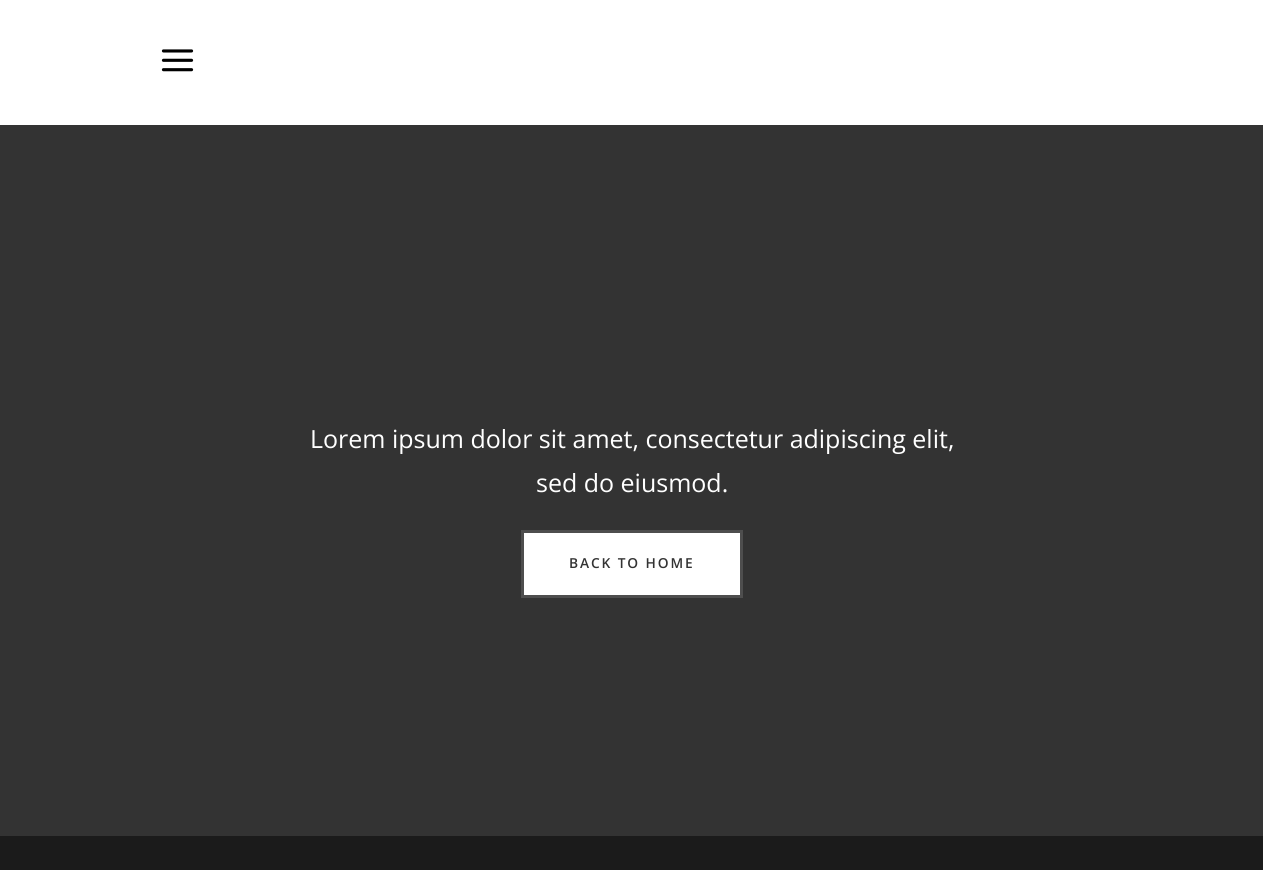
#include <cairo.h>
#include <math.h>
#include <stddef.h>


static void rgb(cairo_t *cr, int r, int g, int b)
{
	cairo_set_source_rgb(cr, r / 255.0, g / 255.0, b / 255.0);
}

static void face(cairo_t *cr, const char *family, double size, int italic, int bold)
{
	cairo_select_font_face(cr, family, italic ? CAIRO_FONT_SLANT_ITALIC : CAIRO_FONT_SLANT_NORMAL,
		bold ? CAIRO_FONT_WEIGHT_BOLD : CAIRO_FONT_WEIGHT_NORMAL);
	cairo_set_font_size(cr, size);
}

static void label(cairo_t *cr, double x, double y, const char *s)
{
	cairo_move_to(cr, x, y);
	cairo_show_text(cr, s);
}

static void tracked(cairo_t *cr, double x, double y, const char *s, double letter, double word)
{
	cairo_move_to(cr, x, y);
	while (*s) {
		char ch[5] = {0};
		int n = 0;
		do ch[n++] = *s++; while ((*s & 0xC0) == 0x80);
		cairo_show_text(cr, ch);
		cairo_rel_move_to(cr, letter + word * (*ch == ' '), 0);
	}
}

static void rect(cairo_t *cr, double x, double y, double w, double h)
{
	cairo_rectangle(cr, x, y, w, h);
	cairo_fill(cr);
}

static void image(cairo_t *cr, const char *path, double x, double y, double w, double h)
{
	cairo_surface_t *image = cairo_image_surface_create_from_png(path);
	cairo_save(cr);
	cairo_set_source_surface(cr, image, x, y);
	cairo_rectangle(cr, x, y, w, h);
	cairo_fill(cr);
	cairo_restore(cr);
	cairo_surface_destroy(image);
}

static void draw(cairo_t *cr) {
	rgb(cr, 255, 255, 255);
	cairo_paint(cr);
	image(cr, "image0.png", 161, 49, 33, 23);
	rgb(cr, 51, 51, 51);
	rect(cr, 0, 125, 1263, 711);
	face(cr, "Open Sans", 25, 0, 0);
	rgb(cr, 255, 255, 255);
	label(cr, 310, 448, "Lorem ipsum dolor sit amet, consectetur adipiscing elit,");
	label(cr, 536, 492, "sed do eiusmod.");
	cairo_rectangle(cr, 522.5, 531.5, 219, 65);
	cairo_fill_preserve(cr);
	rgb(cr, 78, 78, 78);
	cairo_set_line_width(cr, 3);
	cairo_stroke(cr);
	face(cr, "Open Sans SemiBold", 13.75, 0, 0);
	rgb(cr, 51, 51, 51);
	tracked(cr, 569, 568, "BACK TO HOME", 1.9, 0);
	rgb(cr, 27, 27, 27);
	rect(cr, 0, 836, 1263, 34);
}

int main(void) {
	cairo_surface_t *surface = cairo_image_surface_create(CAIRO_FORMAT_RGB24, 1263, 870);
	cairo_t *cr = cairo_create(surface);
	cairo_font_options_t *options = cairo_font_options_create();
	cairo_font_options_set_hint_metrics(options, CAIRO_HINT_METRICS_OFF);
	cairo_font_options_set_hint_style(options, CAIRO_HINT_STYLE_NONE);
	cairo_set_font_options(cr, options);
	cairo_set_miter_limit(cr, 4);
	draw(cr);
	cairo_surface_write_to_png(surface, "render.png");
	cairo_font_options_destroy(options);
	cairo_destroy(cr);
	cairo_surface_destroy(surface);
	return 0;
}
